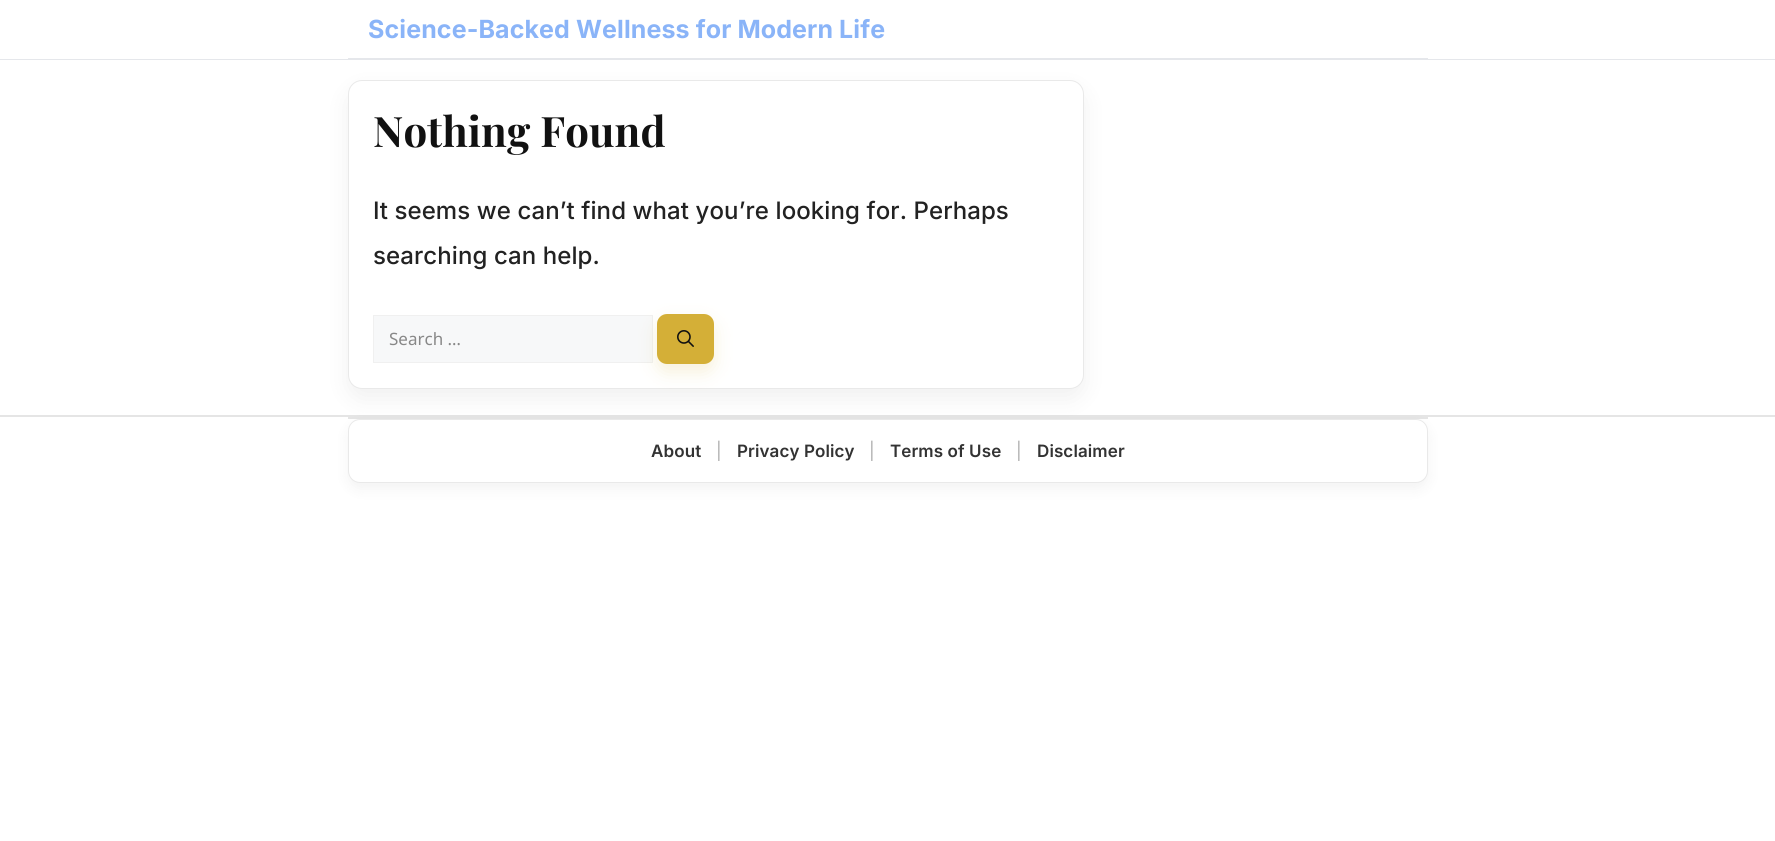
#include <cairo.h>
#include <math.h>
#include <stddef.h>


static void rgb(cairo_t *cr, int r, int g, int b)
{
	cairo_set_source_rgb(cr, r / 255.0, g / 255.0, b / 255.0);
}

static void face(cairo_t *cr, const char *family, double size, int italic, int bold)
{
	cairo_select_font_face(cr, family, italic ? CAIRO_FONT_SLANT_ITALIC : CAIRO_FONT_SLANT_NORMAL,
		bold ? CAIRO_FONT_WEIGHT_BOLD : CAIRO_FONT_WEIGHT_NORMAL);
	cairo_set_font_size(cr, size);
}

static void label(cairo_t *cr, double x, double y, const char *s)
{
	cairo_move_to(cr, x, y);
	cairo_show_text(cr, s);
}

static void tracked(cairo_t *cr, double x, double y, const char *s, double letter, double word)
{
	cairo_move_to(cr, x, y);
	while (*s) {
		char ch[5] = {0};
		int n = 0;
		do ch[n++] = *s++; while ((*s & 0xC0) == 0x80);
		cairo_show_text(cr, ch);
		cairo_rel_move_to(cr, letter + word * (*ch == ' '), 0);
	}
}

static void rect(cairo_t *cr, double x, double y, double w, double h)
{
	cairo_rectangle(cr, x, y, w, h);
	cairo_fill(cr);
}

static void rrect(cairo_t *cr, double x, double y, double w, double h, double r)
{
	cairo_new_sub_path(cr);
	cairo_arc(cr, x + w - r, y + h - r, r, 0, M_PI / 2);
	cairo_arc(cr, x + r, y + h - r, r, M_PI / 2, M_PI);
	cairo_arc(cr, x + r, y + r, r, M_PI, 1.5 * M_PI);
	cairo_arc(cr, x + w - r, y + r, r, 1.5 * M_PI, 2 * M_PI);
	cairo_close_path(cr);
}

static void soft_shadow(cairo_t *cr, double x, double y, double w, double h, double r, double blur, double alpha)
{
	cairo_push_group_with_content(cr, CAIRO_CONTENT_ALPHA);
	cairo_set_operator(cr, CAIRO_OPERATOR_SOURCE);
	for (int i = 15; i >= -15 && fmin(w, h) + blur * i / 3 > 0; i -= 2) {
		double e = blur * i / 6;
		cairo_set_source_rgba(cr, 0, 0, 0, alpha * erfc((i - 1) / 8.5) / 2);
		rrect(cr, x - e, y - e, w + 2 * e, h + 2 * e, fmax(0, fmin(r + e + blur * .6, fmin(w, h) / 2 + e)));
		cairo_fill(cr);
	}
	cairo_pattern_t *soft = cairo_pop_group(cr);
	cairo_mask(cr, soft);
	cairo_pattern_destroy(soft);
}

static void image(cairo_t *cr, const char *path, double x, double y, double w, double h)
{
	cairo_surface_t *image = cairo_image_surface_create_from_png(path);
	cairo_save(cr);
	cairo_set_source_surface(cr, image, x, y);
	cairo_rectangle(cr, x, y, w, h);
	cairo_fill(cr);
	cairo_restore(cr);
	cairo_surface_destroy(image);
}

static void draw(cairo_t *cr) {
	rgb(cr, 255, 255, 255);
	cairo_paint(cr);
	rgb(cr, 229, 229, 229);
	rect(cr, 0, 415, 1775, 2);
	rect(cr, 348, 417, 1080, 2);
	rgb(cr, 0, 0, 0);
	soft_shadow(cr, 348, 425, 1080, 64, 12, 7, 0.05);
	rgb(cr, 255, 255, 255);
	rrect(cr, 348.5, 419.5, 1079, 63, 11.5);
	cairo_fill_preserve(cr);
	rgb(cr, 233, 233, 233);
	cairo_set_line_width(cr, 1);
	cairo_stroke(cr);
	rgb(cr, 0, 0, 0);
	soft_shadow(cr, 348, 90, 736, 309, 14, 12, 0.06);
	rgb(cr, 229, 231, 235);
	rect(cr, 0, 59, 1775, 1);
	rect(cr, 348, 58, 1080, 1);
	face(cr, "Inter", 25, 0, 1);
	rgb(cr, 138, 180, 248);
	tracked(cr, 368, 38, "Science-Backed Wellness for Modern Life", 0.1, 0);
	rgb(cr, 255, 255, 255);
	rrect(cr, 348.5, 80.5, 735, 308, 13.5);
	cairo_fill_preserve(cr);
	rgb(cr, 233, 233, 233);
	cairo_stroke(cr);
	face(cr, "Playfair Display", 42, 0, 1);
	rgb(cr, 17, 17, 17);
	tracked(cr, 373, 147, "Nothing Found", 0.1, 0);
	face(cr, "Inter Medium", 24, 0, 0);
	rgb(cr, 34, 34, 34);
	tracked(cr, 373, 219, "It seems we can’t find what you’re looking for. Perhaps", 0.1, 0);
	tracked(cr, 373, 264, "searching can help.", 0.1, 0);
	rgb(cr, 247, 248, 249);
	cairo_rectangle(cr, 373.5, 315.5, 279, 47);
	cairo_fill_preserve(cr);
	rgb(cr, 240, 240, 240);
	cairo_stroke(cr);
	face(cr, "Noto Sans", 17, 0, 0);
	rgb(cr, 136, 136, 136);
	label(cr, 389, 345, "Search …");
	rgb(cr, 212, 175, 55);
	soft_shadow(cr, 657, 322, 57, 50, 10, 9, 0.18);
	rgb(cr, 212, 175, 55);
	rrect(cr, 657, 314, 57, 50, 10);
	cairo_fill(cr);
	image(cr, "image0.png", 677, 330, 17, 17);
	face(cr, "Inter SemiBold", 17, 0, 0);
	rgb(cr, 51, 51, 51);
	tracked(cr, 651, 457, "About", 0.1, 0);
	face(cr, "Inter", 17, 0, 0);
	rgb(cr, 173, 173, 173);
	tracked(cr, 716, 457, "|", 0.1, 0);
	face(cr, "Inter SemiBold", 17, 0, 0);
	rgb(cr, 51, 51, 51);
	tracked(cr, 737, 457, "Privacy Policy", 0.1, 0);
	face(cr, "Inter", 17, 0, 0);
	rgb(cr, 173, 173, 173);
	tracked(cr, 869, 457, "|", 0.1, 0);
	face(cr, "Inter SemiBold", 17, 0, 0);
	rgb(cr, 51, 51, 51);
	tracked(cr, 890, 457, "Terms of Use", 0.1, 0);
	face(cr, "Inter", 17, 0, 0);
	rgb(cr, 173, 173, 173);
	tracked(cr, 1016, 457, "|", 0.1, 0);
	face(cr, "Inter SemiBold", 17, 0, 0);
	rgb(cr, 51, 51, 51);
	tracked(cr, 1037, 457, "Disclaimer", 0.1, 0);
}

int main(void) {
	cairo_surface_t *surface = cairo_image_surface_create(CAIRO_FORMAT_RGB24, 1775, 841);
	cairo_t *cr = cairo_create(surface);
	cairo_font_options_t *options = cairo_font_options_create();
	cairo_font_options_set_hint_metrics(options, CAIRO_HINT_METRICS_OFF);
	cairo_font_options_set_hint_style(options, CAIRO_HINT_STYLE_NONE);
	cairo_set_font_options(cr, options);
	cairo_set_miter_limit(cr, 4);
	draw(cr);
	cairo_surface_write_to_png(surface, "render.png");
	cairo_font_options_destroy(options);
	cairo_destroy(cr);
	cairo_surface_destroy(surface);
	return 0;
}
